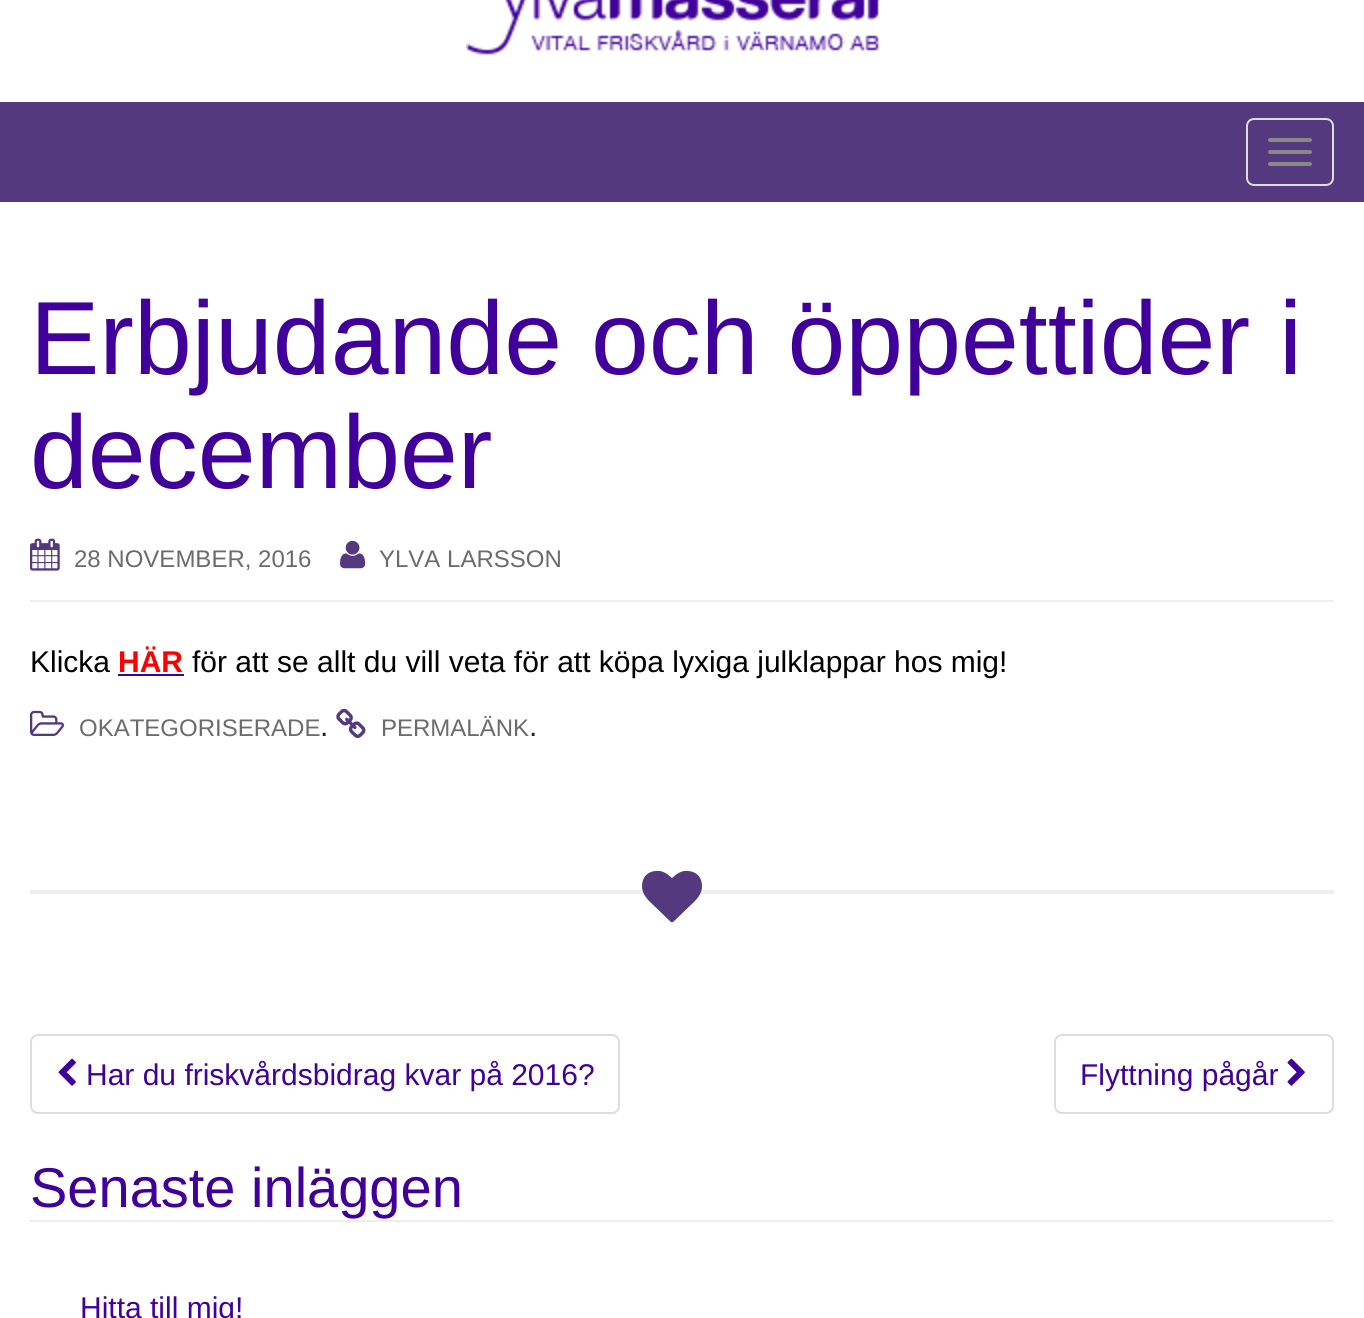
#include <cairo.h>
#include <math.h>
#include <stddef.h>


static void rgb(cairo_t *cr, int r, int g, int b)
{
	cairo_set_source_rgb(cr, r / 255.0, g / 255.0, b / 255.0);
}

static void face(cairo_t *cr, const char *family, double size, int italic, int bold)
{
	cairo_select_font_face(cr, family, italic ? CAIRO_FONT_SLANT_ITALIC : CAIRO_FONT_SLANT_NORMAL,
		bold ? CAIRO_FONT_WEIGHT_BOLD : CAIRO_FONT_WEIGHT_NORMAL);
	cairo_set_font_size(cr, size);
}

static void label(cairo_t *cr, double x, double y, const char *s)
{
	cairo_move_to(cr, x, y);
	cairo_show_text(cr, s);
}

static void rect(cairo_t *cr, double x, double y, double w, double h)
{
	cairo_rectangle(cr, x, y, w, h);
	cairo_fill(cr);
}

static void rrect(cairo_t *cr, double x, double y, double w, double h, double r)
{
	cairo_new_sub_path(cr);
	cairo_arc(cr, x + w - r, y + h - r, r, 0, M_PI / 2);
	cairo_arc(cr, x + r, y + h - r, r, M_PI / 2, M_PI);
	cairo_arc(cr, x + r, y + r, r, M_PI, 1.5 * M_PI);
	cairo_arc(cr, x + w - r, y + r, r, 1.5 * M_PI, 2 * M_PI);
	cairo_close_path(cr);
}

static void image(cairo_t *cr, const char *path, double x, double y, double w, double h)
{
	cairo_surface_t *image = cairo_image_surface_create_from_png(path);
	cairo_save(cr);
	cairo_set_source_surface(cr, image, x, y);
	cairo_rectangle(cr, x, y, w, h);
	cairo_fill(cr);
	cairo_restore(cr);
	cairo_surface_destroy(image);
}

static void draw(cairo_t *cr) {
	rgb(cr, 255, 255, 255);
	cairo_paint(cr);
	image(cr, "image0.png", 466, 0, 415, 55);
	rgb(cr, 84, 57, 126);
	rect(cr, 0, 102, 1364, 100);
	rrect(cr, 1247, 119, 86, 66, 7);
	rgb(cr, 221, 221, 221);
	cairo_stroke(cr);
	rgb(cr, 136, 136, 136);
	rrect(cr, 1268, 138, 44, 4, 2);
	cairo_fill(cr);
	rrect(cr, 1268, 150, 44, 4, 2);
	cairo_fill(cr);
	rrect(cr, 1268, 162, 44, 4, 2);
	cairo_fill(cr);
	rgb(cr, 238, 238, 238);
	rect(cr, 30, 600, 1304, 2);
	face(cr, "Liberation Sans", 104, 0, 0);
	rgb(cr, 64, 0, 153);
	label(cr, 30, 374, "Erbjudande och öppettider i");
	label(cr, 30, 488, "december");
	image(cr, "image1.png", 30, 538, 30, 33);
	face(cr, "Liberation Sans", 24, 0, 0);
	rgb(cr, 107, 107, 107);
	label(cr, 74, 567, "28 NOVEMBER, 2016");
	image(cr, "image2.png", 340, 540, 26, 29);
	label(cr, 379, 567, "YLVA LARSSON");
	face(cr, "Liberation Sans", 30, 0, 0);
	rgb(cr, 0, 0, 0);
	label(cr, 30, 672, "Klicka");
	face(cr, "Liberation Sans", 30, 0, 1);
	rgb(cr, 255, 0, 0);
	label(cr, 118, 672, "HÄR");
	face(cr, "Liberation Sans", 30, 0, 0);
	rgb(cr, 0, 0, 0);
	label(cr, 192, 672, "för att se allt du vill veta för att köpa lyxiga julklappar hos mig!");
	rgb(cr, 64, 0, 153);
	rect(cr, 118, 674, 66, 2);
	image(cr, "image3.png", 30, 710, 35, 26);
	face(cr, "Liberation Sans", 24, 0, 0);
	rgb(cr, 107, 107, 107);
	label(cr, 79, 736, "OKATEGORISERADE");
	face(cr, "Liberation Sans", 30, 0, 0);
	rgb(cr, 34, 34, 34);
	label(cr, 320, 736, ".");
	image(cr, "image4.png", 336, 708, 30, 30);
	face(cr, "Liberation Sans", 24, 0, 0);
	rgb(cr, 107, 107, 107);
	label(cr, 381, 736, "PERMALÄNK");
	face(cr, "Liberation Sans", 30, 0, 0);
	rgb(cr, 34, 34, 34);
	label(cr, 529, 736, ".");
	rgb(cr, 238, 238, 238);
	rect(cr, 30, 890, 1304, 4);
	image(cr, "image5.png", 642, 870, 60, 53);
	rrect(cr, 31, 1035, 588, 78, 7);
	rgb(cr, 221, 221, 221);
	cairo_stroke(cr);
	image(cr, "image6.png", 58, 1058, 18, 28);
	rgb(cr, 64, 0, 153);
	label(cr, 86, 1085, "Har du friskvårdsbidrag kvar på 2016?");
	rrect(cr, 1055, 1035, 278, 78, 7);
	rgb(cr, 221, 221, 221);
	cairo_stroke(cr);
	rgb(cr, 64, 0, 153);
	label(cr, 1080, 1085, "Flyttning pågår");
	image(cr, "image7.png", 1287, 1058, 18, 28);
	rgb(cr, 238, 238, 238);
	rect(cr, 30, 1220, 1304, 2);
	face(cr, "Liberation Sans", 56, 0, 0);
	rgb(cr, 64, 0, 153);
	label(cr, 30, 1207, "Senaste inläggen");
	face(cr, "Liberation Sans", 30, 0, 0);
	label(cr, 80, 1318, "Hitta till mig!");
}

int main(void) {
	cairo_surface_t *surface = cairo_image_surface_create(CAIRO_FORMAT_RGB24, 1364, 1318);
	cairo_t *cr = cairo_create(surface);
	cairo_font_options_t *options = cairo_font_options_create();
	cairo_font_options_set_hint_metrics(options, CAIRO_HINT_METRICS_OFF);
	cairo_font_options_set_hint_style(options, CAIRO_HINT_STYLE_NONE);
	cairo_set_font_options(cr, options);
	cairo_set_miter_limit(cr, 4);
	draw(cr);
	cairo_surface_write_to_png(surface, "render.png");
	cairo_font_options_destroy(options);
	cairo_destroy(cr);
	cairo_surface_destroy(surface);
	return 0;
}
